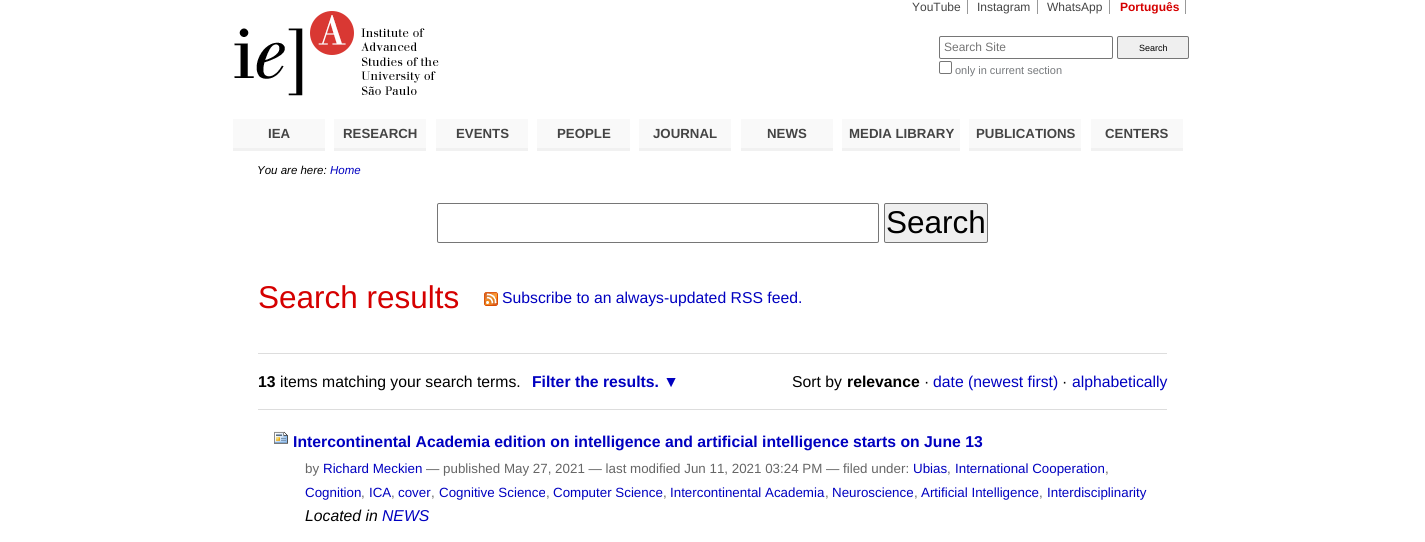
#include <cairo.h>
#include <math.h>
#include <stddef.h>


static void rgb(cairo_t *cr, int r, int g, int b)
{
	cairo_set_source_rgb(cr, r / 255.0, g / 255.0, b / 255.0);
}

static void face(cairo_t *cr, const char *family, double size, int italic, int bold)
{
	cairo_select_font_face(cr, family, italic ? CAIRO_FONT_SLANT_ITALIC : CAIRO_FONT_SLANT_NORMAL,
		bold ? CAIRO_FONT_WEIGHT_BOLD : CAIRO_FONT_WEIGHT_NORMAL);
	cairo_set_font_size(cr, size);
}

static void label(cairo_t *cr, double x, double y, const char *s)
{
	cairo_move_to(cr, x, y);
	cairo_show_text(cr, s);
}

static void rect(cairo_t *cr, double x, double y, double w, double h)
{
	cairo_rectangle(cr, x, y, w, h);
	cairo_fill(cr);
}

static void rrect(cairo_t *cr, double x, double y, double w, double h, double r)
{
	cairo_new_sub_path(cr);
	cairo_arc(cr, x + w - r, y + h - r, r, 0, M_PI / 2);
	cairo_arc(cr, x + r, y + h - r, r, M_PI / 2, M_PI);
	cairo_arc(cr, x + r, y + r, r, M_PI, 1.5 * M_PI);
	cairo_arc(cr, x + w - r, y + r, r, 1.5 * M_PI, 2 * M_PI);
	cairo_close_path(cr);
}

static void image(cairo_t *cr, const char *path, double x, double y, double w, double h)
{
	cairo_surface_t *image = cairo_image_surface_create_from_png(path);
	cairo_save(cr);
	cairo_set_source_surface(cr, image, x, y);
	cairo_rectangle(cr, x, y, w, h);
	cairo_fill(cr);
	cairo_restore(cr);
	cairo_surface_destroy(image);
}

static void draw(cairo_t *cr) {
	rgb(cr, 255, 255, 255);
	cairo_paint(cr);
	face(cr, "Liberation Sans", 12, 0, 0);
	rgb(cr, 68, 68, 68);
	label(cr, 912, 11, "YouTube");
	rgb(cr, 153, 153, 153);
	rect(cr, 967, 0, 1, 14);
	rgb(cr, 68, 68, 68);
	label(cr, 977, 11, "Instagram");
	rgb(cr, 153, 153, 153);
	rect(cr, 1037, 0, 1, 14);
	rgb(cr, 68, 68, 68);
	label(cr, 1047, 11, "WhatsApp");
	rgb(cr, 153, 153, 153);
	rect(cr, 1109, 0, 1, 14);
	face(cr, "Liberation Sans", 12, 0, 1);
	rgb(cr, 213, 0, 0);
	label(cr, 1120, 11, "Português");
	rgb(cr, 153, 153, 153);
	rect(cr, 1185, 0, 1, 14);
	image(cr, "image0.png", 234, 11, 205, 85);
	rrect(cr, 939.5, 36.5, 173, 22, 1.5);
	rgb(cr, 118, 118, 118);
	cairo_set_line_width(cr, 1);
	cairo_stroke(cr);
	face(cr, "Liberation Sans", 12, 0, 0);
	rgb(cr, 117, 117, 117);
	label(cr, 944, 51, "Search Site");
	rgb(cr, 239, 239, 239);
	rrect(cr, 1117.5, 36.5, 71, 22, 1.5);
	cairo_fill_preserve(cr);
	rgb(cr, 118, 118, 118);
	cairo_stroke(cr);
	face(cr, "Liberation Sans", 9, 0, 0);
	rgb(cr, 0, 0, 0);
	label(cr, 1139, 51, "Search");
	rrect(cr, 939.5, 61.5, 12, 12, 1.5);
	rgb(cr, 118, 118, 118);
	cairo_stroke(cr);
	face(cr, "Liberation Sans", 11, 0, 0);
	rgb(cr, 118, 121, 124);
	label(cr, 955, 74, "only in current section");
	rgb(cr, 249, 249, 249);
	rect(cr, 233, 119, 92, 29);
	rgb(cr, 241, 241, 241);
	rect(cr, 233, 148, 92, 3);
	face(cr, "Liberation Sans", 13.25, 0, 1);
	rgb(cr, 68, 68, 68);
	label(cr, 268, 138, "IEA");
	rgb(cr, 249, 249, 249);
	rect(cr, 334, 119, 92, 29);
	rgb(cr, 241, 241, 241);
	rect(cr, 334, 148, 92, 3);
	rgb(cr, 68, 68, 68);
	label(cr, 343, 138, "RESEARCH");
	rgb(cr, 249, 249, 249);
	rect(cr, 436, 119, 92, 29);
	rgb(cr, 241, 241, 241);
	rect(cr, 436, 148, 92, 3);
	rgb(cr, 68, 68, 68);
	label(cr, 456, 138, "EVENTS");
	rgb(cr, 249, 249, 249);
	rect(cr, 537, 119, 93, 29);
	rgb(cr, 241, 241, 241);
	rect(cr, 537, 148, 93, 3);
	rgb(cr, 68, 68, 68);
	label(cr, 557, 138, "PEOPLE");
	rgb(cr, 249, 249, 249);
	rect(cr, 639, 119, 92, 29);
	rgb(cr, 241, 241, 241);
	rect(cr, 639, 148, 92, 3);
	rgb(cr, 68, 68, 68);
	label(cr, 653, 138, "JOURNAL");
	rgb(cr, 249, 249, 249);
	rect(cr, 741, 119, 92, 29);
	rgb(cr, 241, 241, 241);
	rect(cr, 741, 148, 92, 3);
	rgb(cr, 68, 68, 68);
	label(cr, 767, 138, "NEWS");
	rgb(cr, 249, 249, 249);
	rect(cr, 842, 119, 118, 29);
	rgb(cr, 241, 241, 241);
	rect(cr, 842, 148, 118, 3);
	rgb(cr, 68, 68, 68);
	label(cr, 849, 138, "MEDIA LIBRARY");
	rgb(cr, 249, 249, 249);
	rect(cr, 969, 119, 112, 29);
	rgb(cr, 241, 241, 241);
	rect(cr, 969, 148, 112, 3);
	rgb(cr, 68, 68, 68);
	label(cr, 976, 138, "PUBLICATIONS");
	rgb(cr, 249, 249, 249);
	rect(cr, 1091, 119, 92, 29);
	rgb(cr, 241, 241, 241);
	rect(cr, 1091, 148, 92, 3);
	rgb(cr, 68, 68, 68);
	label(cr, 1105, 138, "CENTERS");
	face(cr, "Liberation Sans", 11.5, 1, 0);
	rgb(cr, 0, 0, 0);
	label(cr, 257, 174, "You are here:");
	rgb(cr, 0, 0, 192);
	label(cr, 330, 174, "Home");
	rrect(cr, 437.5, 203.5, 441, 39, 1.5);
	rgb(cr, 118, 118, 118);
	cairo_stroke(cr);
	rgb(cr, 239, 239, 239);
	rrect(cr, 884.5, 203.5, 103, 39, 1.5);
	cairo_fill_preserve(cr);
	rgb(cr, 118, 118, 118);
	cairo_stroke(cr);
	face(cr, "Liberation Sans", 31.5, 0, 0);
	rgb(cr, 0, 0, 0);
	label(cr, 886, 233, "Search");
	rgb(cr, 213, 0, 0);
	label(cr, 258, 308, "Search results");
	image(cr, "image1.png", 484, 292, 14, 14);
	face(cr, "Liberation Sans", 15.75, 0, 0);
	rgb(cr, 0, 0, 192);
	label(cr, 502, 303, "Subscribe to an always-updated RSS feed.");
	rgb(cr, 221, 221, 221);
	rect(cr, 258, 353, 909, 1);
	rect(cr, 258, 409, 909, 1);
	face(cr, "Liberation Sans", 15.75, 0, 1);
	rgb(cr, 0, 0, 0);
	label(cr, 258, 387, "13");
	face(cr, "Liberation Sans", 15.75, 0, 0);
	label(cr, 280, 387, "items matching your search terms.");
	face(cr, "Liberation Sans", 15.75, 0, 1);
	rgb(cr, 0, 0, 192);
	label(cr, 532, 387, "Filter the results. ▼");
	face(cr, "Liberation Sans", 15.75, 0, 0);
	rgb(cr, 0, 0, 0);
	label(cr, 792, 387, "Sort by");
	face(cr, "Liberation Sans", 15.75, 0, 1);
	label(cr, 847, 387, "relevance");
	face(cr, "Liberation Sans", 15.75, 0, 0);
	label(cr, 924, 387, "·");
	rgb(cr, 0, 0, 192);
	label(cr, 933, 387, "date (newest first)");
	rgb(cr, 0, 0, 0);
	label(cr, 1062, 387, "·");
	rgb(cr, 0, 0, 192);
	label(cr, 1072, 387, "alphabetically");
	image(cr, "image2.png", 274, 431, 14, 13);
	face(cr, "Liberation Sans", 15.75, 0, 1);
	label(cr, 293, 447, "Intercontinental Academia edition on intelligence and artificial intelligence starts on June 13");
	face(cr, "Liberation Sans", 13.35, 0, 0);
	rgb(cr, 102, 102, 102);
	label(cr, 305, 473, "by");
	rgb(cr, 0, 0, 192);
	label(cr, 323, 473, "Richard Meckien");
	rgb(cr, 102, 102, 102);
	label(cr, 426, 473, "— published May 27, 2021 — last modified Jun 11, 2021 03:24 PM — filed under:");
	rgb(cr, 0, 0, 192);
	label(cr, 913, 473, "Ubias");
	rgb(cr, 102, 102, 102);
	label(cr, 947, 473, ",");
	rgb(cr, 0, 0, 192);
	label(cr, 955, 473, "International Cooperation");
	rgb(cr, 102, 102, 102);
	label(cr, 1105, 473, ",");
	rgb(cr, 0, 0, 192);
	label(cr, 305, 497, "Cognition");
	rgb(cr, 102, 102, 102);
	label(cr, 361, 497, ",");
	rgb(cr, 0, 0, 192);
	label(cr, 369, 497, "ICA");
	rgb(cr, 102, 102, 102);
	label(cr, 391, 497, ",");
	rgb(cr, 0, 0, 192);
	label(cr, 398, 497, "cover");
	rgb(cr, 102, 102, 102);
	label(cr, 431, 497, ",");
	rgb(cr, 0, 0, 192);
	label(cr, 439, 497, "Cognitive Science");
	rgb(cr, 102, 102, 102);
	label(cr, 546, 497, ",");
	rgb(cr, 0, 0, 192);
	label(cr, 553, 497, "Computer Science");
	rgb(cr, 102, 102, 102);
	label(cr, 663, 497, ",");
	rgb(cr, 0, 0, 192);
	label(cr, 670, 497, "Intercontinental Academia");
	rgb(cr, 102, 102, 102);
	label(cr, 825, 497, ",");
	rgb(cr, 0, 0, 192);
	label(cr, 832, 497, "Neuroscience");
	rgb(cr, 102, 102, 102);
	label(cr, 914, 497, ",");
	rgb(cr, 0, 0, 192);
	label(cr, 921, 497, "Artificial Intelligence");
	rgb(cr, 102, 102, 102);
	label(cr, 1039, 497, ",");
	rgb(cr, 0, 0, 192);
	label(cr, 1047, 497, "Interdisciplinarity");
	face(cr, "Liberation Sans", 15.75, 1, 0);
	rgb(cr, 0, 0, 0);
	label(cr, 305, 521, "Located in");
	rgb(cr, 0, 0, 192);
	label(cr, 382, 521, "NEWS");
}

int main(void) {
	cairo_surface_t *surface = cairo_image_surface_create(CAIRO_FORMAT_RGB24, 1425, 542);
	cairo_t *cr = cairo_create(surface);
	cairo_font_options_t *options = cairo_font_options_create();
	cairo_font_options_set_hint_metrics(options, CAIRO_HINT_METRICS_OFF);
	cairo_font_options_set_hint_style(options, CAIRO_HINT_STYLE_NONE);
	cairo_set_font_options(cr, options);
	cairo_set_miter_limit(cr, 4);
	draw(cr);
	cairo_surface_write_to_png(surface, "render.png");
	cairo_font_options_destroy(options);
	cairo_destroy(cr);
	cairo_surface_destroy(surface);
	return 0;
}
